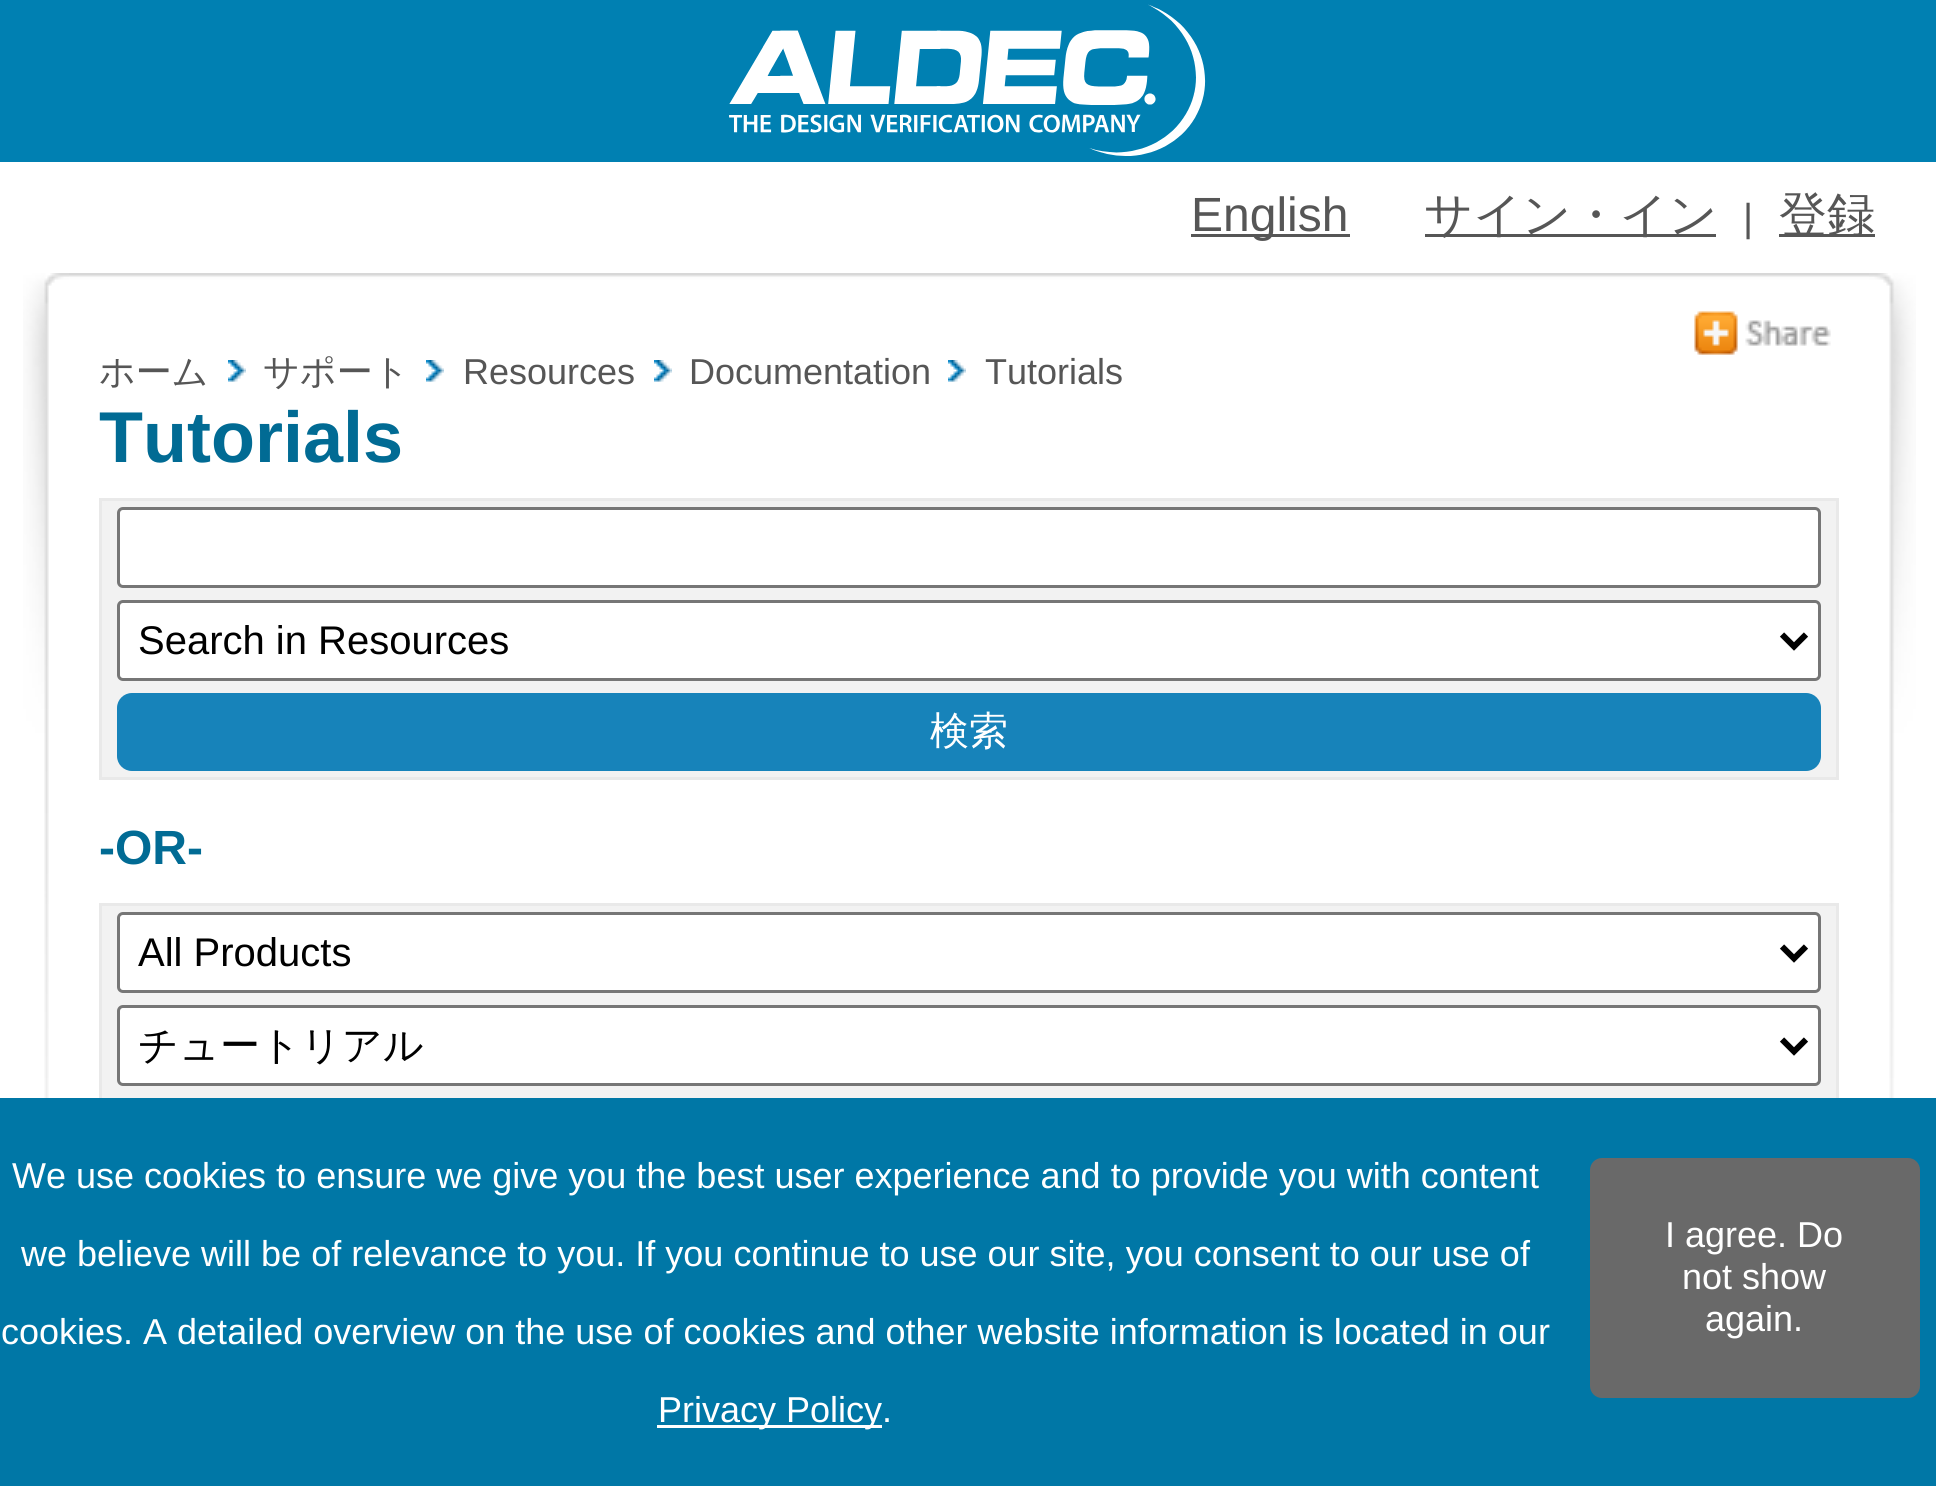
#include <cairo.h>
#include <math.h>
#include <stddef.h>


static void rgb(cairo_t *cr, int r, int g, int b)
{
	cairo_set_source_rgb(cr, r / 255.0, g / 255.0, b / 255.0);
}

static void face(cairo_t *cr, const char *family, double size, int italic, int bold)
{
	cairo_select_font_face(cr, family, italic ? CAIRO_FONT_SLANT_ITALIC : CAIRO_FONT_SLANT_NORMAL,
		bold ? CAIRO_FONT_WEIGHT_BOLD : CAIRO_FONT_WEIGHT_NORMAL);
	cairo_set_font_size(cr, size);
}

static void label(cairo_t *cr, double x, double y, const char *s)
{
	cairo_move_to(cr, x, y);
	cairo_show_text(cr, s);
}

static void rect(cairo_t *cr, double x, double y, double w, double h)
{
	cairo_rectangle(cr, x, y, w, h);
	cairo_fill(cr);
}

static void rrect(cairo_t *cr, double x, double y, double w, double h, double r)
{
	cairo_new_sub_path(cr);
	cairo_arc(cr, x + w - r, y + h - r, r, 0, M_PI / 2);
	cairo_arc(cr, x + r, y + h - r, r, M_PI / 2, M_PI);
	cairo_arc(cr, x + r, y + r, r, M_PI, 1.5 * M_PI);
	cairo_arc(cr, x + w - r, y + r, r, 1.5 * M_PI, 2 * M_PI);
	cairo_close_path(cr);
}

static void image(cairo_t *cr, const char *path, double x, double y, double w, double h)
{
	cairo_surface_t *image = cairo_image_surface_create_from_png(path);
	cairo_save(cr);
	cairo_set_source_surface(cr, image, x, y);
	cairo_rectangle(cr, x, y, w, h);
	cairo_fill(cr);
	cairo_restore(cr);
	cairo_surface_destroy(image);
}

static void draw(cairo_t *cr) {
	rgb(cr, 255, 255, 255);
	cairo_paint(cr);
	rgb(cr, 0, 128, 178);
	rect(cr, 0, 0, 1936, 162);
	image(cr, "image0.png", 729, 4, 477, 152);
	rgb(cr, 86, 86, 86);
	rect(cr, 1191, 234, 159, 3);
	face(cr, "Liberation Sans", 48, 0, 0);
	label(cr, 1191, 231, "English");
	rect(cr, 1425, 234, 291, 3);
	face(cr, "WenQuanYi Zen Hei Medium", 48, 0, 0);
	label(cr, 1424, 231, "サイン・イン");
	face(cr, "Liberation Sans", 39, 0, 0);
	label(cr, 1743, 231, "|");
	rect(cr, 1779, 234, 96, 3);
	face(cr, "WenQuanYi Zen Hei Medium", 48, 0, 0);
	label(cr, 1779, 231, "登録");
	image(cr, "image1.png", 23, 273, 1893, 825);
	image(cr, "image2.png", 1694, 311, 137, 44);
	face(cr, "WenQuanYi Zen Hei Medium", 36, 0, 0);
	label(cr, 99, 384, "ホーム");
	image(cr, "image3.png", 228, 360, 18, 22);
	label(cr, 263, 384, "サポート");
	image(cr, "image4.png", 426, 360, 18, 22);
	face(cr, "Liberation Sans", 36, 0, 0);
	label(cr, 463, 384, "Resources");
	image(cr, "image3.png", 654, 360, 18, 22);
	label(cr, 689, 384, "Documentation");
	image(cr, "image3.png", 948, 360, 18, 22);
	label(cr, 985, 384, "Tutorials");
	face(cr, "Liberation Sans", 72, 0, 1);
	rgb(cr, 1, 107, 148);
	label(cr, 99, 462, "Tutorials");
	rgb(cr, 233, 233, 233);
	rect(cr, 99, 498, 1740, 3);
	rect(cr, 1836, 498, 3, 282);
	rect(cr, 99, 777, 1740, 3);
	rect(cr, 99, 498, 3, 282);
	rgb(cr, 242, 242, 242);
	rect(cr, 102, 501, 1734, 276);
	rgb(cr, 255, 255, 255);
	rrect(cr, 118.5, 508.5, 1701, 78, 4.5);
	cairo_fill_preserve(cr);
	rgb(cr, 118, 118, 118);
	cairo_set_line_width(cr, 3);
	cairo_stroke(cr);
	rgb(cr, 255, 255, 255);
	rrect(cr, 118.5, 601.5, 1701, 78, 4.5);
	cairo_fill_preserve(cr);
	rgb(cr, 118, 118, 118);
	cairo_stroke(cr);
	cairo_new_path(cr);
	cairo_move_to(cr, 1782, 634.5);
	cairo_line_to(cr, 1794, 646.5);
	cairo_line_to(cr, 1806, 634.5);
	rgb(cr, 0, 0, 0);
	cairo_set_line_width(cr, 6);
	cairo_stroke(cr);
	face(cr, "Liberation Sans", 40, 0, 0);
	label(cr, 138, 654, "Search in Resources");
	rgb(cr, 23, 131, 186);
	rrect(cr, 117, 693, 1704, 78, 15);
	cairo_fill(cr);
	face(cr, "WenQuanYi Zen Hei Medium", 39, 0, 0);
	rgb(cr, 255, 255, 255);
	label(cr, 930, 744, "検索");
	face(cr, "Liberation Sans", 48, 0, 1);
	rgb(cr, 1, 107, 148);
	label(cr, 99, 864, "-OR-");
	rgb(cr, 233, 233, 233);
	rect(cr, 99, 903, 1740, 3);
	rect(cr, 1836, 903, 3, 195);
	rect(cr, 99, 903, 3, 195);
	rgb(cr, 242, 242, 242);
	rect(cr, 102, 906, 1734, 192);
	rgb(cr, 255, 255, 255);
	rrect(cr, 118.5, 913.5, 1701, 78, 4.5);
	cairo_fill_preserve(cr);
	rgb(cr, 118, 118, 118);
	cairo_set_line_width(cr, 3);
	cairo_stroke(cr);
	cairo_new_path(cr);
	cairo_move_to(cr, 1782, 946.5);
	cairo_line_to(cr, 1794, 958.5);
	cairo_line_to(cr, 1806, 946.5);
	rgb(cr, 0, 0, 0);
	cairo_set_line_width(cr, 6);
	cairo_stroke(cr);
	face(cr, "Liberation Sans", 40, 0, 0);
	label(cr, 138, 966, "All Products");
	rgb(cr, 255, 255, 255);
	rrect(cr, 118.5, 1006.5, 1701, 78, 4.5);
	cairo_fill_preserve(cr);
	rgb(cr, 118, 118, 118);
	cairo_set_line_width(cr, 3);
	cairo_stroke(cr);
	cairo_new_path(cr);
	cairo_move_to(cr, 1782, 1039.5);
	cairo_line_to(cr, 1794, 1051.5);
	cairo_line_to(cr, 1806, 1039.5);
	rgb(cr, 0, 0, 0);
	cairo_set_line_width(cr, 6);
	cairo_stroke(cr);
	face(cr, "WenQuanYi Zen Hei Medium", 40, 0, 0);
	label(cr, 138, 1059, "チュートリアル");
	rgb(cr, 0, 119, 166);
	rect(cr, 0, 1098, 1936, 388);
	face(cr, "Liberation Sans", 36, 0, 0);
	rgb(cr, 255, 255, 255);
	label(cr, 12, 1188, "We use cookies to ensure we give you the best user experience and to provide you with content");
	label(cr, 21, 1266, "we believe will be of relevance to you. If you continue to use our site, you consent to our use of");
	label(cr, 1, 1344, "cookies. A detailed overview on the use of cookies and other website information is located in our");
	rect(cr, 657, 1425, 225, 3);
	label(cr, 658, 1422, "Privacy Policy.");
	rgb(cr, 105, 105, 105);
	rrect(cr, 1590, 1158, 330, 240, 12);
	cairo_fill(cr);
	rgb(cr, 255, 255, 255);
	label(cr, 1665, 1247, "I agree. Do");
	label(cr, 1682, 1289, "not show");
	label(cr, 1705, 1331, "again.");
}

int main(void) {
	cairo_surface_t *surface = cairo_image_surface_create(CAIRO_FORMAT_RGB24, 1936, 1486);
	cairo_t *cr = cairo_create(surface);
	cairo_font_options_t *options = cairo_font_options_create();
	cairo_font_options_set_hint_metrics(options, CAIRO_HINT_METRICS_OFF);
	cairo_font_options_set_hint_style(options, CAIRO_HINT_STYLE_NONE);
	cairo_set_font_options(cr, options);
	cairo_set_miter_limit(cr, 4);
	draw(cr);
	cairo_surface_write_to_png(surface, "render.png");
	cairo_font_options_destroy(options);
	cairo_destroy(cr);
	cairo_surface_destroy(surface);
	return 0;
}
